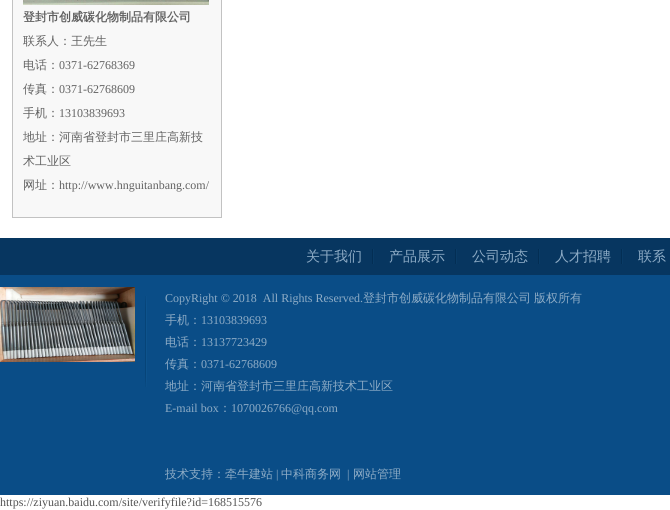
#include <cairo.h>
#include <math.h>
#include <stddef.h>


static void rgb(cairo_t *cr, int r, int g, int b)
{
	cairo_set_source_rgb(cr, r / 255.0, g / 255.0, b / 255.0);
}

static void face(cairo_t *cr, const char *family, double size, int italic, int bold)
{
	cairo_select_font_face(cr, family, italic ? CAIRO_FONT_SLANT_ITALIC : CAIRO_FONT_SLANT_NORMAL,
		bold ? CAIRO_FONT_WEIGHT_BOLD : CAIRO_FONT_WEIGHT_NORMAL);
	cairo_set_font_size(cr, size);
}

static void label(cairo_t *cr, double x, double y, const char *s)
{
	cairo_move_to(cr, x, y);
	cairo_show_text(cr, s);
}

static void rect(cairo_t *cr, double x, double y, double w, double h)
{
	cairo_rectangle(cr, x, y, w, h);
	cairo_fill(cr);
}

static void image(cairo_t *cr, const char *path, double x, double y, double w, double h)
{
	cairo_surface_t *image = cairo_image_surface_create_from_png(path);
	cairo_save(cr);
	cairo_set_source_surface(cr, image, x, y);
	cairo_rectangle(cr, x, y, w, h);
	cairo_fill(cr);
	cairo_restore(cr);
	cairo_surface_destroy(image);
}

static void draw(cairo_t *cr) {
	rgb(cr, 255, 255, 255);
	cairo_paint(cr);
	rgb(cr, 248, 248, 248);
	cairo_rectangle(cr, 12.5, -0.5, 209, 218);
	cairo_fill_preserve(cr);
	rgb(cr, 194, 194, 194);
	cairo_set_line_width(cr, 1);
	cairo_stroke(cr);
	image(cr, "image0.png", 23, 0, 186, 5);
	face(cr, "WenQuanYi Zen Hei", 12, 0, 1);
	rgb(cr, 98, 98, 98);
	label(cr, 23, 21, "登封市创威碳化物制品有限公司");
	face(cr, "WenQuanYi Zen Hei Medium", 12, 0, 0);
	label(cr, 23, 45, "联系人：王先生");
	label(cr, 23, 69, "电话：");
	face(cr, "Liberation Serif", 12, 0, 0);
	label(cr, 59, 69, "0371-62768369");
	face(cr, "WenQuanYi Zen Hei Medium", 12, 0, 0);
	label(cr, 23, 93, "传真：");
	face(cr, "Liberation Serif", 12, 0, 0);
	label(cr, 59, 93, "0371-62768609");
	face(cr, "WenQuanYi Zen Hei Medium", 12, 0, 0);
	label(cr, 23, 117, "手机：");
	face(cr, "Liberation Serif", 12, 0, 0);
	label(cr, 59, 117, "13103839693");
	face(cr, "WenQuanYi Zen Hei Medium", 12, 0, 0);
	label(cr, 23, 141, "地址：河南省登封市三里庄高新技");
	label(cr, 23, 165, "术工业区");
	label(cr, 23, 189, "网址：");
	face(cr, "Liberation Serif", 12, 0, 0);
	label(cr, 59, 189, "http://www.hnguitanbang.com/");
	rgb(cr, 10, 77, 135);
	rect(cr, 0, 275, 670, 220);
	rgb(cr, 7, 54, 96);
	rect(cr, 0, 238, 670, 37);
	face(cr, "WenQuanYi Zen Hei Medium", 14, 0, 0);
	rgb(cr, 142, 172, 198);
	label(cr, 306, 261, "关于我们");
	image(cr, "image1.png", 372, 249, 2, 15);
	label(cr, 389, 261, "产品展示");
	image(cr, "image1.png", 455, 249, 2, 15);
	label(cr, 472, 261, "公司动态");
	image(cr, "image1.png", 538, 249, 2, 15);
	label(cr, 555, 261, "人才招聘");
	image(cr, "image1.png", 621, 249, 2, 15);
	label(cr, 638, 261, "联系");
	image(cr, "image2.png", 0, 287, 135, 75);
	image(cr, "image3.png", 145, 296, 2, 91);
	face(cr, "Liberation Serif", 12, 0, 0);
	label(cr, 165, 302, "CopyRight © 2018  All Rights Reserved.");
	face(cr, "WenQuanYi Zen Hei Medium", 12, 0, 0);
	label(cr, 363, 302, "登封市创威碳化物制品有限公司");
	label(cr, 534, 302, "版权所有");
	label(cr, 165, 324, "手机：");
	face(cr, "Liberation Serif", 12, 0, 0);
	label(cr, 201, 324, "13103839693");
	face(cr, "WenQuanYi Zen Hei Medium", 12, 0, 0);
	label(cr, 165, 346, "电话：");
	face(cr, "Liberation Serif", 12, 0, 0);
	label(cr, 201, 346, "13137723429");
	face(cr, "WenQuanYi Zen Hei Medium", 12, 0, 0);
	label(cr, 165, 368, "传真：");
	face(cr, "Liberation Serif", 12, 0, 0);
	label(cr, 201, 368, "0371-62768609");
	face(cr, "WenQuanYi Zen Hei Medium", 12, 0, 0);
	label(cr, 165, 390, "地址：河南省登封市三里庄高新技术工业区");
	face(cr, "Liberation Serif", 12, 0, 0);
	label(cr, 165, 412, "E-mail box");
	face(cr, "WenQuanYi Zen Hei Medium", 12, 0, 0);
	label(cr, 219, 412, "：");
	face(cr, "Liberation Serif", 12, 0, 0);
	label(cr, 231, 412, "1070026766@qq.com");
	face(cr, "WenQuanYi Zen Hei Medium", 12, 0, 0);
	label(cr, 165, 478, "技术支持：牵牛建站");
	face(cr, "Liberation Serif", 12, 0, 0);
	label(cr, 276, 478, "|");
	face(cr, "WenQuanYi Zen Hei Medium", 12, 0, 0);
	label(cr, 281, 478, "中科商务网");
	face(cr, "Liberation Serif", 12, 0, 0);
	label(cr, 347, 478, "|");
	face(cr, "WenQuanYi Zen Hei Medium", 12, 0, 0);
	label(cr, 353, 478, "网站管理");
	face(cr, "Liberation Serif", 12, 0, 0);
	rgb(cr, 83, 83, 83);
	label(cr, 0, 506, "https://ziyuan.baidu.com/site/verifyfile?id=168515576");
}

int main(void) {
	cairo_surface_t *surface = cairo_image_surface_create(CAIRO_FORMAT_RGB24, 670, 510);
	cairo_t *cr = cairo_create(surface);
	cairo_font_options_t *options = cairo_font_options_create();
	cairo_font_options_set_hint_metrics(options, CAIRO_HINT_METRICS_OFF);
	cairo_font_options_set_hint_style(options, CAIRO_HINT_STYLE_NONE);
	cairo_set_font_options(cr, options);
	cairo_set_miter_limit(cr, 4);
	draw(cr);
	cairo_surface_write_to_png(surface, "render.png");
	cairo_font_options_destroy(options);
	cairo_destroy(cr);
	cairo_surface_destroy(surface);
	return 0;
}
